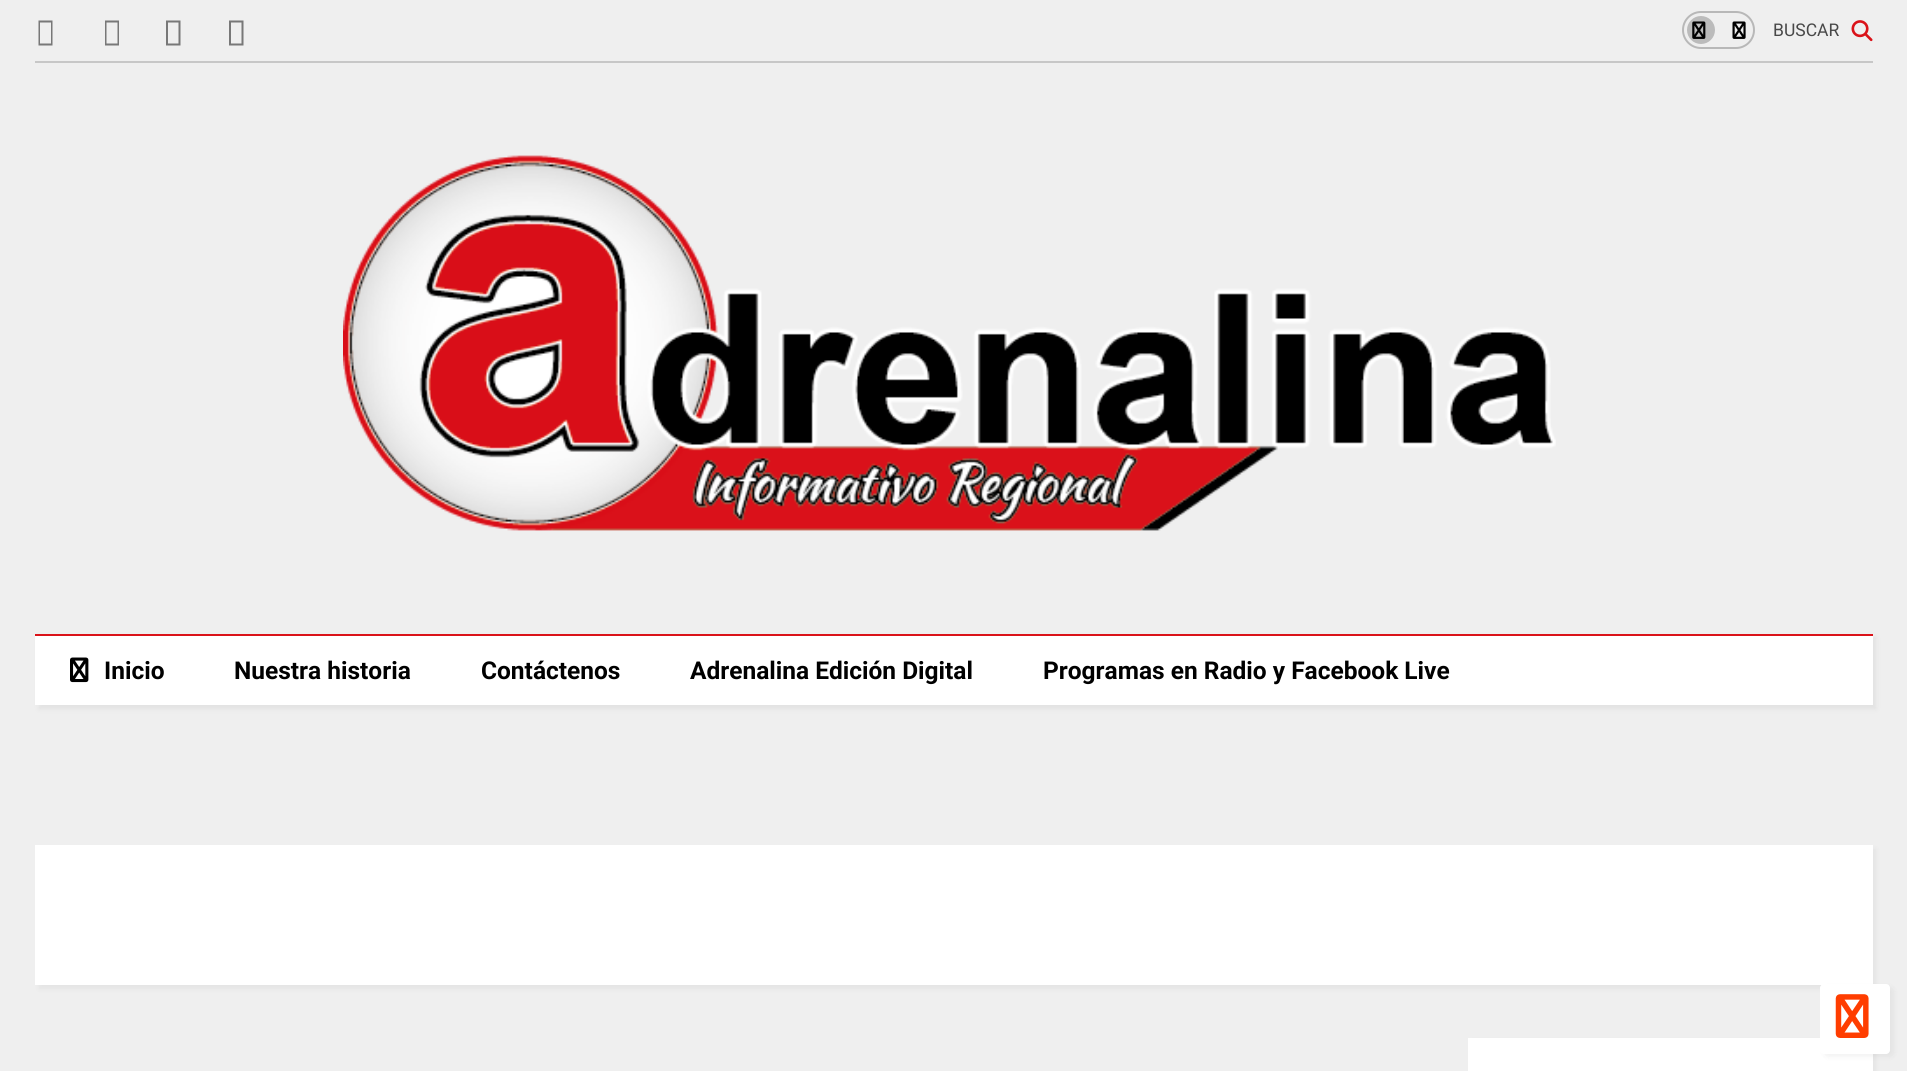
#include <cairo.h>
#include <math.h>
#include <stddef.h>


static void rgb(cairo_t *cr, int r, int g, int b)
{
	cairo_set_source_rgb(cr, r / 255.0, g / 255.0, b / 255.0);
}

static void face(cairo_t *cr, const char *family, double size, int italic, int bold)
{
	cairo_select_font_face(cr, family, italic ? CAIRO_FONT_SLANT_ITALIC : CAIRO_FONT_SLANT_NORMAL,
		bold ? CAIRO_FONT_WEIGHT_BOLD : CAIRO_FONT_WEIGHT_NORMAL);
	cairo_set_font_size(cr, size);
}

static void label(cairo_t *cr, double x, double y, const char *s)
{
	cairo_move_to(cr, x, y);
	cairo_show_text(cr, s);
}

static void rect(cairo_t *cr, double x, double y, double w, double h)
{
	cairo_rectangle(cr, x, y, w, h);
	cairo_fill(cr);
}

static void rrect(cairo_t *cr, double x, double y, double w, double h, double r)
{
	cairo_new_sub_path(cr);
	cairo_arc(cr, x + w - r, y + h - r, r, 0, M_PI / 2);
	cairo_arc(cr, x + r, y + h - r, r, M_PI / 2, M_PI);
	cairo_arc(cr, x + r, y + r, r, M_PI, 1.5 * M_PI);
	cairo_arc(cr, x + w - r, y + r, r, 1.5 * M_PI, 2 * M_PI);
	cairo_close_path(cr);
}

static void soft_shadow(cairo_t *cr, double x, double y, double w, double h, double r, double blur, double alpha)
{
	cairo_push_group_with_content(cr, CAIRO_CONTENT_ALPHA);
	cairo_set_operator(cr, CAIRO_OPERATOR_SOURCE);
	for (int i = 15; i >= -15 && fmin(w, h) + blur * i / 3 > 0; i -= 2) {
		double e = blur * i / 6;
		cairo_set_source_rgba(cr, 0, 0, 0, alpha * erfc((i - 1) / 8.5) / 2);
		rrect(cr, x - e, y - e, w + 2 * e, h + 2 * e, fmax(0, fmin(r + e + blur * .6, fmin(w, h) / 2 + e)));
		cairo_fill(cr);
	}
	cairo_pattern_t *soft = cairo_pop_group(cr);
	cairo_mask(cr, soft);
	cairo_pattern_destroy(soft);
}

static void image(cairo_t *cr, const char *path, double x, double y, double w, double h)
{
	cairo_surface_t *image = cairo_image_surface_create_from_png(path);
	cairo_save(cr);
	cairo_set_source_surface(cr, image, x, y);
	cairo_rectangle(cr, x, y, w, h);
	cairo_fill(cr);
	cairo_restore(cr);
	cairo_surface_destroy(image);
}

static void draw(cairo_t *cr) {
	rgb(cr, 239, 239, 239);
	cairo_paint(cr);
	rgb(cr, 199, 199, 199);
	rect(cr, 35, 61, 1838, 2);
	rgb(cr, 120, 120, 120);
	cairo_new_path(cr);
	cairo_move_to(cr, 38.5, 45.5);
	cairo_line_to(cr, 38.5, 20.5);
	cairo_line_to(cr, 52.5, 20.5);
	cairo_line_to(cr, 52.5, 45.5);
	cairo_close_path(cr);
	cairo_move_to(cr, 40, 43.5);
	cairo_line_to(cr, 51, 43.5);
	cairo_line_to(cr, 51, 22.5);
	cairo_line_to(cr, 40, 22.5);
	cairo_close_path(cr);
	cairo_fill(cr);
	cairo_new_path(cr);
	cairo_move_to(cr, 105, 45.5);
	cairo_line_to(cr, 105, 20.5);
	cairo_line_to(cr, 119, 20.5);
	cairo_line_to(cr, 119, 45.5);
	cairo_close_path(cr);
	cairo_move_to(cr, 106.5, 43.5);
	cairo_line_to(cr, 117.5, 43.5);
	cairo_line_to(cr, 117.5, 22.5);
	cairo_line_to(cr, 106.5, 22.5);
	cairo_close_path(cr);
	cairo_fill(cr);
	cairo_new_path(cr);
	cairo_move_to(cr, 166, 45.5);
	cairo_line_to(cr, 166, 20.5);
	cairo_line_to(cr, 180.5, 20.5);
	cairo_line_to(cr, 180.5, 45.5);
	cairo_close_path(cr);
	cairo_move_to(cr, 168, 43.5);
	cairo_line_to(cr, 178.5, 43.5);
	cairo_line_to(cr, 178.5, 22.5);
	cairo_line_to(cr, 168, 22.5);
	cairo_close_path(cr);
	cairo_fill(cr);
	cairo_new_path(cr);
	cairo_move_to(cr, 229, 45.5);
	cairo_line_to(cr, 229, 20.5);
	cairo_line_to(cr, 243.5, 20.5);
	cairo_line_to(cr, 243.5, 45.5);
	cairo_close_path(cr);
	cairo_move_to(cr, 231, 43.5);
	cairo_line_to(cr, 241.5, 43.5);
	cairo_line_to(cr, 241.5, 22.5);
	cairo_line_to(cr, 231, 22.5);
	cairo_close_path(cr);
	cairo_fill(cr);
	rrect(cr, 1683, 12, 71, 36, 18);
	rgb(cr, 184, 184, 184);
	cairo_stroke(cr);
	rgb(cr, 187, 187, 187);
	cairo_arc(cr, 1701, 30, 14, 0, 2 * M_PI);
	cairo_fill(cr);
	image(cr, "image0.png", 1692, 21, 14, 18);
	image(cr, "image1.png", 1732, 21, 14, 18);
	face(cr, "Roboto", 17.5, 0, 0);
	rgb(cr, 72, 72, 72);
	label(cr, 1773, 36, "BUSCAR");
	image(cr, "image2.png", 1851, 20, 22, 22);
	image(cr, "image3.png", 343, 155, 1213, 376);
	rgb(cr, 120, 120, 120);
	soft_shadow(cr, 39, 637, 1837, 72, 0, 2.5, 0.12);
	rgb(cr, 255, 255, 255);
	rect(cr, 35, 636, 1838, 69);
	rgb(cr, 218, 18, 25);
	rect(cr, 35, 634, 1838, 2);
	image(cr, "image4.png", 70, 657, 19, 26);
	face(cr, "Roboto", 24.5, 0, 1);
	rgb(cr, 0, 0, 0);
	label(cr, 104, 679, "Inicio");
	label(cr, 234, 679, "Nuestra historia");
	label(cr, 481, 679, "Contáctenos");
	label(cr, 690, 679, "Adrenalina Edición Digital");
	label(cr, 1043, 679, "Programas en Radio y Facebook Live");
	rgb(cr, 0, 0, 0);
	soft_shadow(cr, 39, 849, 1837, 140, 0, 2.5, 0.05);
	rgb(cr, 255, 255, 255);
	rect(cr, 35, 845, 1838, 140);
	rgb(cr, 0, 0, 0);
	soft_shadow(cr, 1472, 1041, 404, 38, 0, 2.5, 0.05);
	rgb(cr, 255, 255, 255);
	rect(cr, 1468, 1038, 405, 33);
	rgb(cr, 0, 0, 0);
	soft_shadow(cr, 1824, 987, 70, 70, 4, 2.5, 0.05);
	rgb(cr, 255, 255, 255);
	rrect(cr, 1820, 984, 70, 70, 4);
	cairo_fill(cr);
	image(cr, "image5.png", 1835, 994, 34, 44);
}

int main(void) {
	cairo_surface_t *surface = cairo_image_surface_create(CAIRO_FORMAT_RGB24, 1907, 1071);
	cairo_t *cr = cairo_create(surface);
	cairo_font_options_t *options = cairo_font_options_create();
	cairo_font_options_set_hint_metrics(options, CAIRO_HINT_METRICS_OFF);
	cairo_font_options_set_hint_style(options, CAIRO_HINT_STYLE_NONE);
	cairo_set_font_options(cr, options);
	cairo_set_miter_limit(cr, 4);
	draw(cr);
	cairo_surface_write_to_png(surface, "render.png");
	cairo_font_options_destroy(options);
	cairo_destroy(cr);
	cairo_surface_destroy(surface);
	return 0;
}
